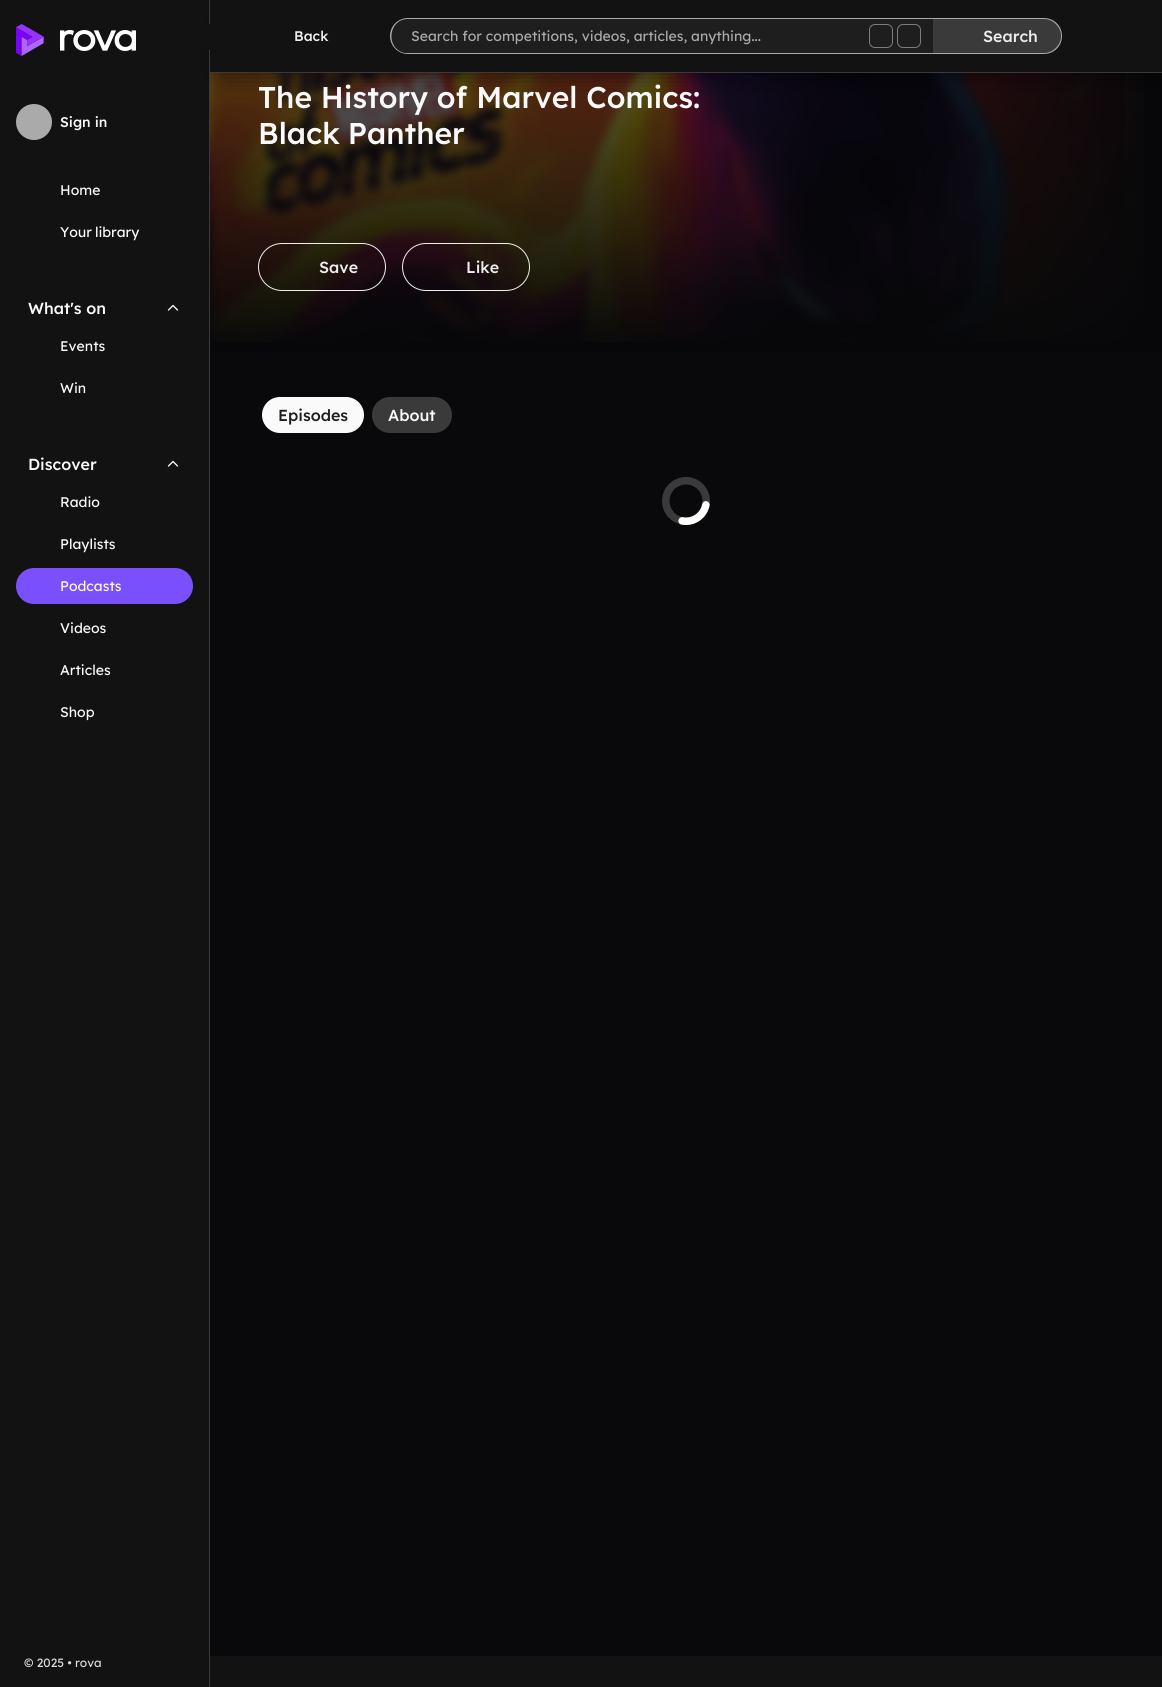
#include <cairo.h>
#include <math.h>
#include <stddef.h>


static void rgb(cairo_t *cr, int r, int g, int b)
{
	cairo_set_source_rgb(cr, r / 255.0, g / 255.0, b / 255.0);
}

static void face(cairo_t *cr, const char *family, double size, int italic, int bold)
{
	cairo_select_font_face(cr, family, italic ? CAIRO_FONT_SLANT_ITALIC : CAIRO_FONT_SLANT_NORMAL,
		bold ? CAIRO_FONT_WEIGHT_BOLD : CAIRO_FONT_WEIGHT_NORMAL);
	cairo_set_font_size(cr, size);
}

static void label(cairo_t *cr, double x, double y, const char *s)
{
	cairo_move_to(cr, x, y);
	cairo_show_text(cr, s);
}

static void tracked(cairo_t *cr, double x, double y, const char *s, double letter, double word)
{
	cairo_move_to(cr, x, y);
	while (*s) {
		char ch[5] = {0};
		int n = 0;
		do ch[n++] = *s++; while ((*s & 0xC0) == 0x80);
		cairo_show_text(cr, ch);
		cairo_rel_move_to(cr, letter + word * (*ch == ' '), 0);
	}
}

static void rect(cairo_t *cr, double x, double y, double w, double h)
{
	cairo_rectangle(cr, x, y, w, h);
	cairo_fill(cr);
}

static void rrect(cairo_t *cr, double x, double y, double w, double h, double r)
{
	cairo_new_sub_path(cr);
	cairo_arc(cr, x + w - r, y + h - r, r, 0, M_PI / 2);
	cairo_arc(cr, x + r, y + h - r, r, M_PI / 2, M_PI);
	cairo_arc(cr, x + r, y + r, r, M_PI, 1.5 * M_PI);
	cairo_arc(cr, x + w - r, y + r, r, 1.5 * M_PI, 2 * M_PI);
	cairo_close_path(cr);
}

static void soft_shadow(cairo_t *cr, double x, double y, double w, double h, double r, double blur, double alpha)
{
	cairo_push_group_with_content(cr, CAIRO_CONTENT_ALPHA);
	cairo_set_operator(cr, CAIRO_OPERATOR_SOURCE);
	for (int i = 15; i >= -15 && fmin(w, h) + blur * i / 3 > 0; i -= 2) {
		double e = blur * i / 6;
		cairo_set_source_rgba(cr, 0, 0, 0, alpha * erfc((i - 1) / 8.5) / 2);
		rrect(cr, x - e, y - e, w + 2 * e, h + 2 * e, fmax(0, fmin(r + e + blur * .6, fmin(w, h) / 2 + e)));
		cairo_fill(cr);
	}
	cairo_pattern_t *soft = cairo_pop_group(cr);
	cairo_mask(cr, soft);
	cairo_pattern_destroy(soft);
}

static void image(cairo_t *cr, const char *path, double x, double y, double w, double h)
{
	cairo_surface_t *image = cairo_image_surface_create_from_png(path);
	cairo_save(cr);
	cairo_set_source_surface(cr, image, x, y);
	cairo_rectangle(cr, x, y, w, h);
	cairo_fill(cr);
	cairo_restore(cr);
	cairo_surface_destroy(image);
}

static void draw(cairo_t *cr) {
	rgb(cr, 18, 18, 18);
	cairo_paint(cr);
	rgb(cr, 7, 7, 10);
	rect(cr, 210, 73, 952, 280);
	image(cr, "image1.png", 210, 73, 934, 267);
	image(cr, "image2.png", 210, 73, 915, 269);
	cairo_save(cr);
	cairo_set_fill_rule(cr, CAIRO_FILL_RULE_EVEN_ODD);
	cairo_new_path(cr);
	cairo_move_to(cr, 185, 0);
	cairo_line_to(cr, 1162, 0);
	cairo_line_to(cr, 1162, 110);
	cairo_line_to(cr, 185, 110);
	cairo_close_path(cr);
	cairo_move_to(cr, 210, 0);
	cairo_line_to(cr, 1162, 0);
	cairo_line_to(cr, 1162, 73);
	cairo_line_to(cr, 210, 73);
	cairo_close_path(cr);
	cairo_clip(cr);
	rgb(cr, 0, 0, 0);
	soft_shadow(cr, 222, 24, 928, 49, 0, 12, 0.65);
	cairo_restore(cr);
	rgb(cr, 58, 58, 58);
	rect(cr, 210, 72, 952, 1);
	face(cr, "Lexend Medium", 14, 0, 0);
	rgb(cr, 237, 237, 237);
	label(cr, 294, 41, "Back");
	rgb(cr, 30, 30, 30);
	cairo_new_path(cr);
	cairo_move_to(cr, 408, 19);
	cairo_line_to(cr, 857, 19);
	cairo_line_to(cr, 857, 53);
	cairo_line_to(cr, 408, 53);
	cairo_curve_to(cr, 398.5, 53, 391, 45.5, 391, 36);
	cairo_curve_to(cr, 391, 26.5, 398.5, 19, 408, 19);
	cairo_close_path(cr);
	cairo_fill(cr);
	rgb(cr, 170, 170, 170);
	cairo_set_fill_rule(cr, CAIRO_FILL_RULE_EVEN_ODD);
	cairo_new_path(cr);
	cairo_move_to(cr, 408, 18);
	cairo_line_to(cr, 857, 18);
	cairo_line_to(cr, 857, 54);
	cairo_line_to(cr, 408, 54);
	cairo_curve_to(cr, 398, 54, 390, 46, 390, 36);
	cairo_curve_to(cr, 390, 26, 398, 18, 408, 18);
	cairo_close_path(cr);
	cairo_move_to(cr, 408, 19);
	cairo_line_to(cr, 857, 19);
	cairo_line_to(cr, 857, 53);
	cairo_line_to(cr, 405, 53);
	cairo_curve_to(cr, 385, 49, 388, 19, 408, 19);
	cairo_close_path(cr);
	cairo_fill(cr);
	face(cr, "Lexend", 14, 0, 0);
	label(cr, 411, 41, "Search for competitions, videos, articles, anything...");
	rgb(cr, 30, 30, 30);
	rect(cr, 857, 19, 76, 34);
	rgb(cr, 170, 170, 170);
	rect(cr, 857, 18, 76, 1);
	rect(cr, 857, 53, 76, 1);
	rrect(cr, 869.5, 24.5, 23, 23, 5.5);
	rgb(cr, 125, 125, 125);
	cairo_set_line_width(cr, 1);
	cairo_stroke(cr);
	rrect(cr, 897.5, 24.5, 23, 23, 5.5);
	cairo_stroke(cr);
	rgb(cr, 58, 58, 58);
	cairo_new_path(cr);
	cairo_move_to(cr, 933, 19);
	cairo_line_to(cr, 1044, 19);
	cairo_curve_to(cr, 1053.5, 19, 1061, 26.5, 1061, 36);
	cairo_curve_to(cr, 1061, 45.5, 1053.5, 53, 1044, 53);
	cairo_line_to(cr, 933, 53);
	cairo_close_path(cr);
	cairo_fill(cr);
	rgb(cr, 170, 170, 170);
	cairo_new_path(cr);
	cairo_move_to(cr, 933, 18);
	cairo_line_to(cr, 1044, 18);
	cairo_curve_to(cr, 1054, 18, 1062, 26, 1062, 36);
	cairo_curve_to(cr, 1062, 46, 1054, 54, 1044, 54);
	cairo_line_to(cr, 933, 54);
	cairo_close_path(cr);
	cairo_move_to(cr, 933, 19);
	cairo_line_to(cr, 1044, 19);
	cairo_curve_to(cr, 1053, 19, 1061, 27, 1061, 36);
	cairo_curve_to(cr, 1061, 45, 1053, 53, 1044, 53);
	cairo_line_to(cr, 933, 53);
	cairo_close_path(cr);
	cairo_fill(cr);
	face(cr, "Lexend Medium", 16, 0, 0);
	rgb(cr, 237, 237, 237);
	label(cr, 983, 42, "Search");
	rgb(cr, 58, 58, 58);
	rect(cr, 209, 0, 1, 1687);
	image(cr, "image0.png", 16, 24, 120, 32);
	rgb(cr, 18, 18, 18);
	cairo_arc(cr, 209, 37, 13, 0, 2 * M_PI);
	cairo_fill(cr);
	rgb(cr, 170, 170, 170);
	cairo_arc(cr, 34, 122, 18, 0, 2 * M_PI);
	cairo_fill(cr);
	face(cr, "Lexend Medium", 14, 0, 0);
	rgb(cr, 250, 250, 250);
	label(cr, 60, 127, "Sign in");
	face(cr, "Lexend", 14, 0, 0);
	label(cr, 60, 195, "Home");
	tracked(cr, 60, 237, "Your library", 0, -1);
	face(cr, "Lexend Medium", 16, 0, 0);
	label(cr, 28, 314, "What's on");
	cairo_new_path(cr);
	cairo_move_to(cr, 168.5, 310);
	cairo_line_to(cr, 173, 305.5);
	cairo_line_to(cr, 177.5, 310);
	rgb(cr, 255, 255, 255);
	cairo_set_line_width(cr, 1.3);
	cairo_set_line_cap(cr, CAIRO_LINE_CAP_ROUND);
	cairo_set_line_join(cr, CAIRO_LINE_JOIN_ROUND);
	cairo_stroke(cr);
	face(cr, "Lexend", 14, 0, 0);
	rgb(cr, 250, 250, 250);
	label(cr, 60, 351, "Events");
	label(cr, 60, 393, "Win");
	face(cr, "Lexend Medium", 16, 0, 0);
	label(cr, 28, 470, "Discover");
	cairo_new_path(cr);
	cairo_move_to(cr, 168.5, 466);
	cairo_line_to(cr, 173, 461.5);
	cairo_line_to(cr, 177.5, 466);
	rgb(cr, 255, 255, 255);
	cairo_stroke(cr);
	face(cr, "Lexend", 14, 0, 0);
	rgb(cr, 250, 250, 250);
	label(cr, 60, 507, "Radio");
	label(cr, 60, 549, "Playlists");
	rgb(cr, 122, 79, 252);
	rrect(cr, 16, 568, 177, 36, 18);
	cairo_fill(cr);
	rgb(cr, 250, 250, 250);
	label(cr, 60, 591, "Podcasts");
	label(cr, 60, 633, "Videos");
	label(cr, 60, 675, "Articles");
	label(cr, 60, 717, "Shop");
	face(cr, "Lexend", 12, 0, 0);
	rgb(cr, 219, 219, 219);
	label(cr, 24, 1667, "© 2025 • rova");
	rgb(cr, 9, 9, 12);
	rect(cr, 210, 353, 952, 1303);
	face(cr, "Lexend Medium", 30, 0, 0);
	rgb(cr, 250, 250, 250);
	label(cr, 258, 108, "The History of Marvel Comics:");
	tracked(cr, 258, 144, "Black Panther", 0, -1);
	rrect(cr, 258.5, 243.5, 127, 47, 23.5);
	rgb(cr, 237, 237, 237);
	cairo_set_line_width(cr, 1);
	cairo_set_line_cap(cr, CAIRO_LINE_CAP_BUTT);
	cairo_set_line_join(cr, CAIRO_LINE_JOIN_MITER);
	cairo_stroke(cr);
	face(cr, "Lexend Medium", 16, 0, 0);
	label(cr, 319, 273, "Save");
	rrect(cr, 402.5, 243.5, 127, 47, 23.5);
	cairo_stroke(cr);
	label(cr, 466, 273, "Like");
	rgb(cr, 250, 250, 250);
	rrect(cr, 262, 397, 102, 36, 18);
	cairo_fill(cr);
	rgb(cr, 30, 30, 30);
	label(cr, 278, 421, "Episodes");
	rgb(cr, 58, 58, 58);
	rrect(cr, 372, 397, 80, 36, 18);
	cairo_fill(cr);
	rgb(cr, 250, 250, 250);
	label(cr, 388, 421, "About");
	image(cr, "image3.png", 662, 477, 48, 48);
}

int main(void) {
	cairo_surface_t *surface = cairo_image_surface_create(CAIRO_FORMAT_RGB24, 1162, 1687);
	cairo_t *cr = cairo_create(surface);
	cairo_font_options_t *options = cairo_font_options_create();
	cairo_font_options_set_hint_metrics(options, CAIRO_HINT_METRICS_OFF);
	cairo_font_options_set_hint_style(options, CAIRO_HINT_STYLE_NONE);
	cairo_set_font_options(cr, options);
	cairo_set_miter_limit(cr, 4);
	draw(cr);
	cairo_surface_write_to_png(surface, "render.png");
	cairo_font_options_destroy(options);
	cairo_destroy(cr);
	cairo_surface_destroy(surface);
	return 0;
}
